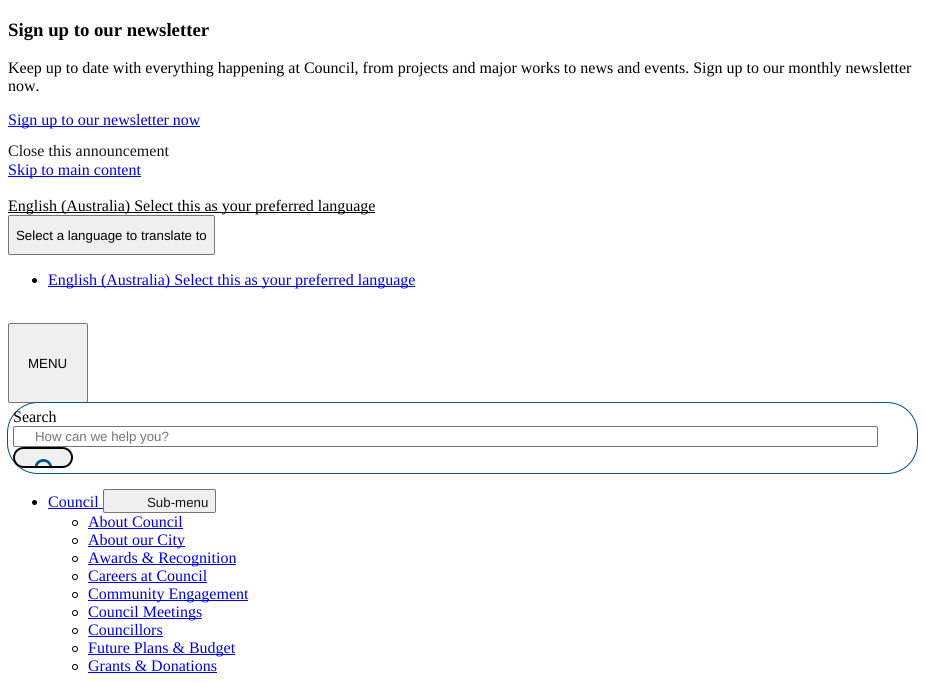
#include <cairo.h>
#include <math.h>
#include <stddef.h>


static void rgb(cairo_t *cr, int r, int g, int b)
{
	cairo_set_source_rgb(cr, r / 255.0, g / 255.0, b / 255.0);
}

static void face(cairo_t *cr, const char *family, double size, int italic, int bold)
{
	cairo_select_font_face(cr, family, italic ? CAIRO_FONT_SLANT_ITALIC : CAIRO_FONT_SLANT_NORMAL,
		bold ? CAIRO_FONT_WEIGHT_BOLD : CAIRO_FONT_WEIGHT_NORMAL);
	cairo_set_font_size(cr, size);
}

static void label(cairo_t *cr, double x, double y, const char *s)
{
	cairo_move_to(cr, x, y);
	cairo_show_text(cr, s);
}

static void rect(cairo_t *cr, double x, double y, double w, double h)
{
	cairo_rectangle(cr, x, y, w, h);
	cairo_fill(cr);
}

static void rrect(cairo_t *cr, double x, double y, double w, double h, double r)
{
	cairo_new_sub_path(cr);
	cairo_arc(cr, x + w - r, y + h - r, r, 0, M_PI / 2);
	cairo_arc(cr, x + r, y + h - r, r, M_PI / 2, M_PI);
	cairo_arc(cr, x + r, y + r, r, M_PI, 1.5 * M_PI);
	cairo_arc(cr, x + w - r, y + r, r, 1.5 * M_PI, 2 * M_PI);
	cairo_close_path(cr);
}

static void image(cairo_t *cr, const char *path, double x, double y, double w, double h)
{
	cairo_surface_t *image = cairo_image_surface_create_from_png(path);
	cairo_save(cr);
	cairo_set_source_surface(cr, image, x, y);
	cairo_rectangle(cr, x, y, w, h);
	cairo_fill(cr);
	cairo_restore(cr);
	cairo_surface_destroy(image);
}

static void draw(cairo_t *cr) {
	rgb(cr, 255, 255, 255);
	cairo_paint(cr);
	face(cr, "Liberation Serif", 18.75, 0, 1);
	rgb(cr, 0, 0, 0);
	label(cr, 8, 36, "Sign up to our newsletter");
	face(cr, "Liberation Serif", 16, 0, 0);
	label(cr, 8, 73, "Keep up to date with everything happening at Council, from projects and major works to news and events. Sign up to our monthly newsletter");
	label(cr, 8, 91, "now.");
	rgb(cr, 0, 0, 238);
	rect(cr, 8, 126, 192, 1);
	label(cr, 8, 125, "Sign up to our newsletter now");
	rgb(cr, 20, 20, 20);
	label(cr, 8, 156, "Close this announcement");
	rgb(cr, 0, 0, 238);
	rect(cr, 8, 176, 133, 1);
	label(cr, 8, 175, "Skip to main content");
	rgb(cr, 0, 0, 0);
	rect(cr, 8, 212, 367, 1);
	label(cr, 8, 211, "English (Australia) Select this as your preferred language");
	rgb(cr, 239, 239, 239);
	rrect(cr, 8.5, 215.5, 206, 39, 1.5);
	cairo_fill_preserve(cr);
	rgb(cr, 118, 118, 118);
	cairo_set_line_width(cr, 1);
	cairo_stroke(cr);
	face(cr, "Liberation Sans", 13.3, 0, 0);
	rgb(cr, 0, 0, 0);
	label(cr, 16, 240, "Select a language to translate to");
	cairo_new_path(cr);
	cairo_arc(cr, 34.5, 280.5, 2.5, 0, 2 * M_PI);
	cairo_fill(cr);
	rgb(cr, 0, 0, 238);
	rect(cr, 48, 286, 367, 1);
	face(cr, "Liberation Serif", 16, 0, 0);
	label(cr, 48, 285, "English (Australia) Select this as your preferred language");
	rgb(cr, 239, 239, 239);
	rrect(cr, 8.5, 323.5, 79, 79, 1.5);
	cairo_fill_preserve(cr);
	rgb(cr, 118, 118, 118);
	cairo_stroke(cr);
	face(cr, "Liberation Sans", 13.3, 0, 0);
	rgb(cr, 0, 0, 0);
	label(cr, 28, 368, "MENU");
	rrect(cr, 13.5, 426.5, 864, 20, 1.5);
	rgb(cr, 118, 118, 118);
	cairo_stroke(cr);
	rrect(cr, 7.5, 402.5, 910, 71, 30.5);
	rgb(cr, 0, 84, 128);
	cairo_stroke(cr);
	face(cr, "Liberation Serif", 16, 0, 0);
	rgb(cr, 0, 0, 0);
	label(cr, 13, 422, "Search");
	face(cr, "Liberation Sans", 13.3, 0, 0);
	rgb(cr, 117, 117, 117);
	label(cr, 35, 441, "How can we help you?");
	rgb(cr, 239, 239, 239);
	rrect(cr, 13, 447, 60, 21, 10.5);
	cairo_fill(cr);
	image(cr, "image0.png", 34, 459, 18, 7);
	rrect(cr, 14, 448, 58, 19, 9.5);
	rgb(cr, 0, 0, 0);
	cairo_set_line_width(cr, 2);
	cairo_stroke(cr);
	cairo_arc(cr, 34.5, 502.5, 2.5, 0, 2 * M_PI);
	cairo_fill(cr);
	face(cr, "Liberation Serif", 16, 0, 0);
	rgb(cr, 0, 0, 238);
	label(cr, 48, 507, "Council");
	rect(cr, 48, 508, 55, 1);
	rgb(cr, 239, 239, 239);
	rrect(cr, 103.5, 489.5, 112, 23, 1.5);
	cairo_fill_preserve(cr);
	rgb(cr, 118, 118, 118);
	cairo_set_line_width(cr, 1);
	cairo_stroke(cr);
	face(cr, "Liberation Sans", 13.3, 0, 0);
	rgb(cr, 20, 20, 20);
	label(cr, 147, 507, "Sub-menu");
	cairo_new_path(cr);
	cairo_arc(cr, 75, 523, 2.5, 0, 2 * M_PI);
	rgb(cr, 0, 0, 0);
	cairo_stroke(cr);
	face(cr, "Liberation Serif", 16, 0, 0);
	rgb(cr, 0, 0, 238);
	label(cr, 88, 527, "About Council");
	rect(cr, 88, 528, 95, 1);
	cairo_new_path(cr);
	cairo_arc(cr, 75, 541, 2.5, 0, 2 * M_PI);
	rgb(cr, 0, 0, 0);
	cairo_stroke(cr);
	rgb(cr, 0, 0, 238);
	rect(cr, 88, 546, 97, 1);
	label(cr, 88, 545, "About our City");
	cairo_new_path(cr);
	cairo_arc(cr, 75, 559, 2.5, 0, 2 * M_PI);
	rgb(cr, 0, 0, 0);
	cairo_stroke(cr);
	rgb(cr, 0, 0, 238);
	rect(cr, 88, 564, 148, 1);
	label(cr, 88, 563, "Awards & Recognition");
	cairo_new_path(cr);
	cairo_arc(cr, 75, 577, 2.5, 0, 2 * M_PI);
	rgb(cr, 0, 0, 0);
	cairo_stroke(cr);
	rgb(cr, 0, 0, 238);
	label(cr, 88, 581, "Careers at Council");
	rect(cr, 88, 582, 119, 1);
	cairo_new_path(cr);
	cairo_arc(cr, 75, 595, 2.5, 0, 2 * M_PI);
	rgb(cr, 0, 0, 0);
	cairo_stroke(cr);
	rgb(cr, 0, 0, 238);
	rect(cr, 88, 600, 160, 1);
	label(cr, 88, 599, "Community Engagement");
	cairo_new_path(cr);
	cairo_arc(cr, 75, 613, 2.5, 0, 2 * M_PI);
	rgb(cr, 0, 0, 0);
	cairo_stroke(cr);
	rgb(cr, 0, 0, 238);
	rect(cr, 88, 618, 114, 1);
	label(cr, 88, 617, "Council Meetings");
	cairo_new_path(cr);
	cairo_arc(cr, 75, 631, 2.5, 0, 2 * M_PI);
	rgb(cr, 0, 0, 0);
	cairo_stroke(cr);
	rgb(cr, 0, 0, 238);
	label(cr, 88, 635, "Councillors");
	rect(cr, 88, 636, 75, 1);
	cairo_new_path(cr);
	cairo_arc(cr, 75, 649, 2.5, 0, 2 * M_PI);
	rgb(cr, 0, 0, 0);
	cairo_stroke(cr);
	rgb(cr, 0, 0, 238);
	rect(cr, 88, 654, 147, 1);
	label(cr, 88, 653, "Future Plans & Budget");
	cairo_new_path(cr);
	cairo_arc(cr, 75, 667, 2.5, 0, 2 * M_PI);
	rgb(cr, 0, 0, 0);
	cairo_stroke(cr);
	rgb(cr, 0, 0, 238);
	label(cr, 88, 671, "Grants & Donations");
	rect(cr, 88, 672, 129, 1);
}

int main(void) {
	cairo_surface_t *surface = cairo_image_surface_create(CAIRO_FORMAT_RGB24, 925, 682);
	cairo_t *cr = cairo_create(surface);
	cairo_font_options_t *options = cairo_font_options_create();
	cairo_font_options_set_hint_metrics(options, CAIRO_HINT_METRICS_OFF);
	cairo_font_options_set_hint_style(options, CAIRO_HINT_STYLE_NONE);
	cairo_set_font_options(cr, options);
	cairo_set_miter_limit(cr, 4);
	draw(cr);
	cairo_surface_write_to_png(surface, "render.png");
	cairo_font_options_destroy(options);
	cairo_destroy(cr);
	cairo_surface_destroy(surface);
	return 0;
}
